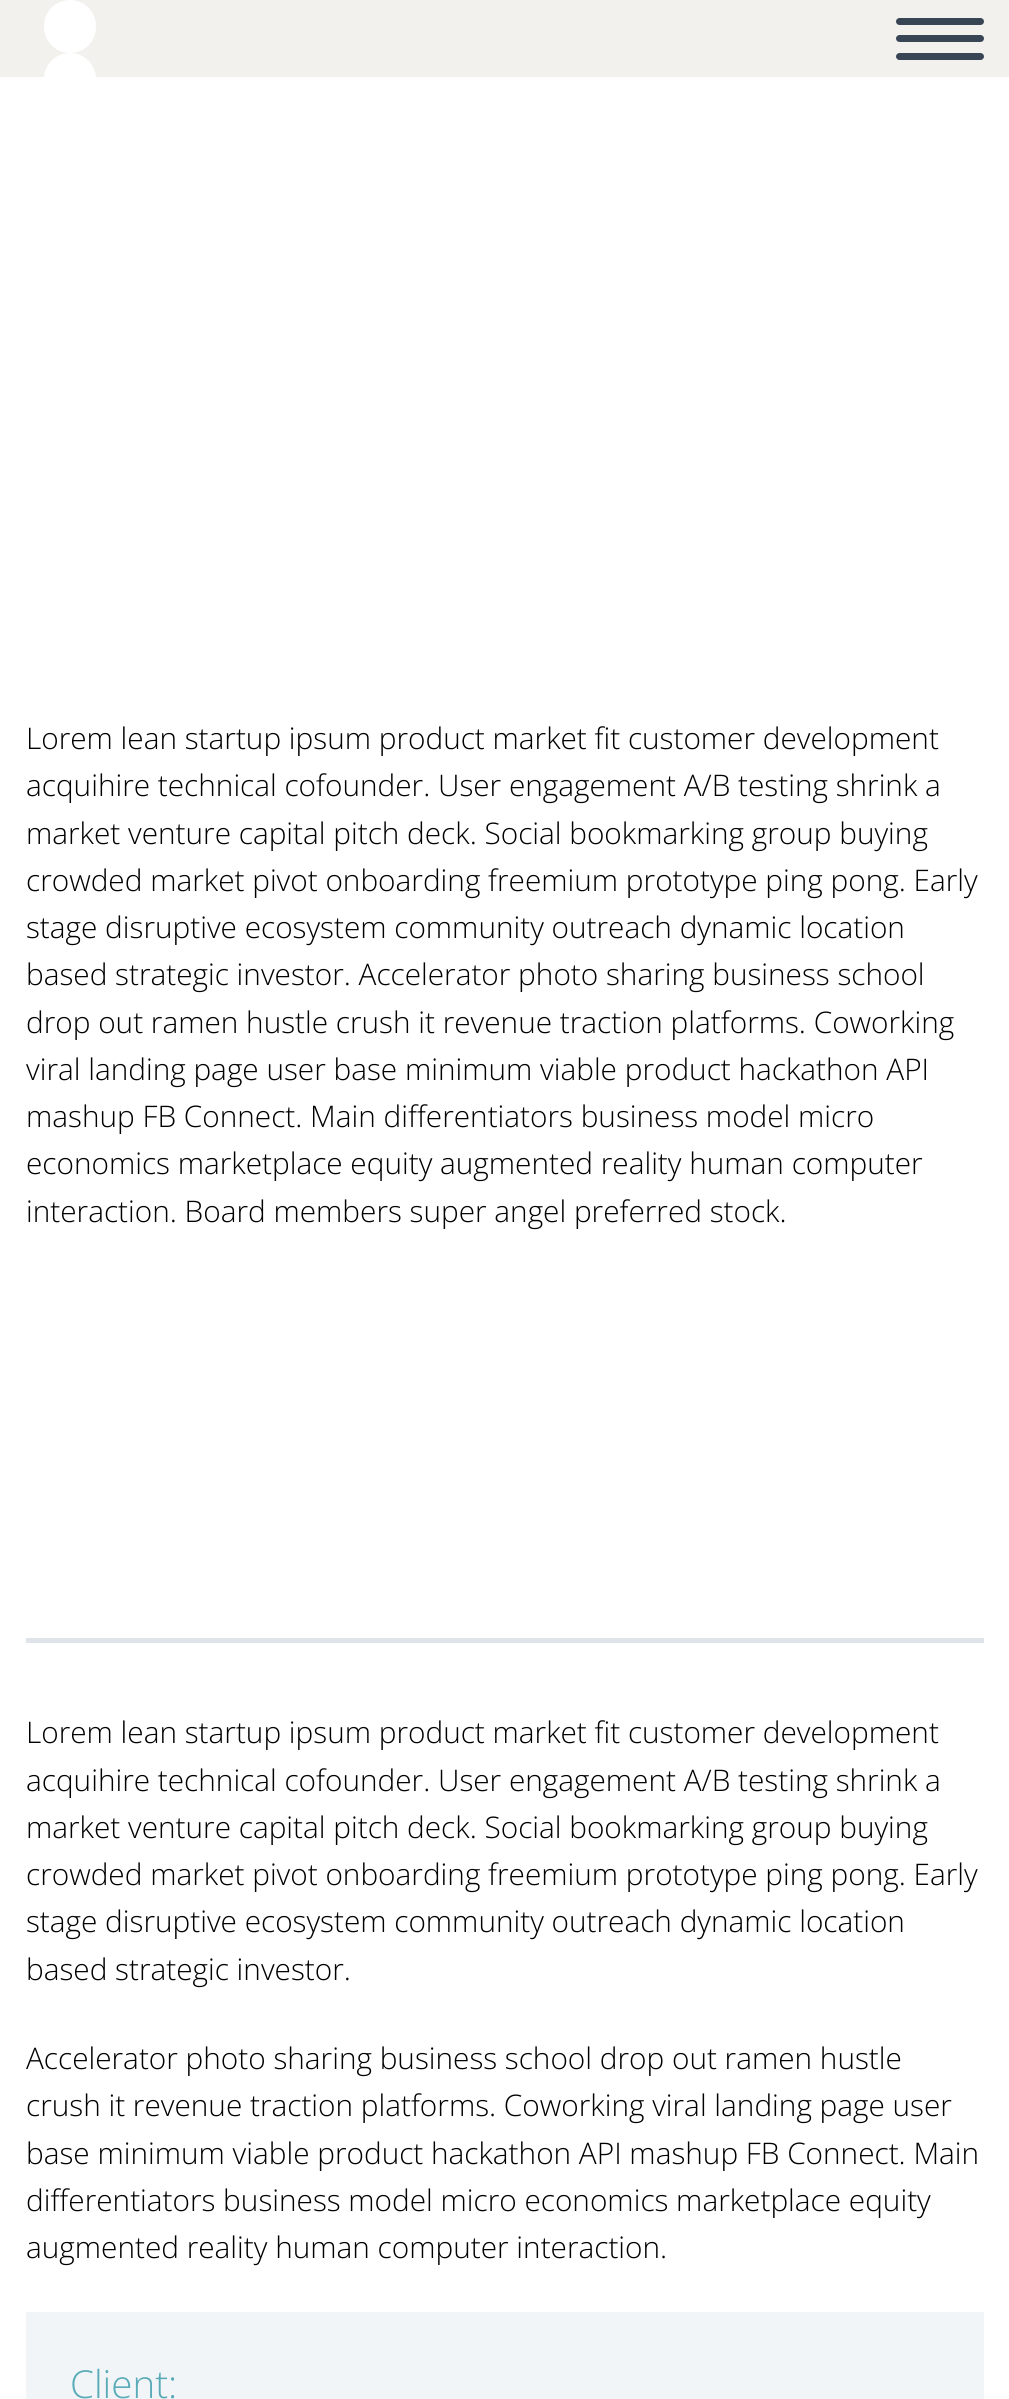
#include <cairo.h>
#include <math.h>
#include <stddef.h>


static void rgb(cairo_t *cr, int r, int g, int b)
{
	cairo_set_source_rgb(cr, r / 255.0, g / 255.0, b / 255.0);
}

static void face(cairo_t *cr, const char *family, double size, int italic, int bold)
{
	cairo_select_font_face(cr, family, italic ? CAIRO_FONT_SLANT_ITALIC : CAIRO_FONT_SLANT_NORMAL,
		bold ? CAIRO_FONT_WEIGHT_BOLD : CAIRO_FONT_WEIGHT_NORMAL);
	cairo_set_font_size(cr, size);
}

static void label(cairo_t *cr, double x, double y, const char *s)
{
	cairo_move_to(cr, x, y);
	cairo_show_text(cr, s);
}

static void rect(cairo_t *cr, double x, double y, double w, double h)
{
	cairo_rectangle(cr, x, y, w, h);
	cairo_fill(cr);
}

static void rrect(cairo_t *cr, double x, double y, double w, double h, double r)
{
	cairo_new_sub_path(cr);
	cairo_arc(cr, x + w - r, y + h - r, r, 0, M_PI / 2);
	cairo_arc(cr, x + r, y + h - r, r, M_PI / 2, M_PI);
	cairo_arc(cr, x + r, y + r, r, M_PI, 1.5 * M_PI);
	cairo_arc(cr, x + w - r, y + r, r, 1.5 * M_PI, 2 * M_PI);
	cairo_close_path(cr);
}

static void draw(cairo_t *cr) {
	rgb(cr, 242, 241, 237);
	cairo_paint(cr);
	rgb(cr, 255, 255, 255);
	rrect(cr, 44, 0, 52, 53, 26);
	cairo_fill(cr);
	rect(cr, 0, 77, 1009, 2322);
	cairo_arc(cr, 70, 79, 26, 0, 2 * M_PI);
	cairo_fill(cr);
	rgb(cr, 56, 69, 84);
	rrect(cr, 896, 53, 88, 7, 3.5);
	cairo_fill(cr);
	rrect(cr, 896, 35, 88, 7, 3.5);
	cairo_fill(cr);
	rrect(cr, 896, 18, 88, 7, 3.5);
	cairo_fill(cr);
	face(cr, "Open Sans Light", 29.75, 0, 0);
	rgb(cr, 0, 0, 0);
	label(cr, 26, 749, "Lorem lean startup ipsum product market fit customer development");
	label(cr, 26, 796, "acquihire technical cofounder. User engagement A/B testing shrink a");
	label(cr, 26, 844, "market venture capital pitch deck. Social bookmarking group buying");
	label(cr, 26, 891, "crowded market pivot onboarding freemium prototype ping pong. Early");
	label(cr, 26, 938, "stage disruptive ecosystem community outreach dynamic location");
	label(cr, 26, 985, "based strategic investor. Accelerator photo sharing business school");
	label(cr, 26, 1033, "drop out ramen hustle crush it revenue traction platforms. Coworking");
	label(cr, 26, 1080, "viral landing page user base minimum viable product hackathon API");
	label(cr, 26, 1127, "mashup FB Connect. Main differentiators business model micro");
	label(cr, 26, 1174, "economics marketplace equity augmented reality human computer");
	label(cr, 26, 1222, "interaction. Board members super angel preferred stock.");
	rgb(cr, 222, 228, 234);
	rect(cr, 26, 1638, 958, 5);
	rgb(cr, 0, 0, 0);
	label(cr, 26, 1743, "Lorem lean startup ipsum product market fit customer development");
	label(cr, 26, 1791, "acquihire technical cofounder. User engagement A/B testing shrink a");
	label(cr, 26, 1838, "market venture capital pitch deck. Social bookmarking group buying");
	label(cr, 26, 1885, "crowded market pivot onboarding freemium prototype ping pong. Early");
	label(cr, 26, 1932, "stage disruptive ecosystem community outreach dynamic location");
	label(cr, 26, 1980, "based strategic investor.");
	label(cr, 26, 2069, "Accelerator photo sharing business school drop out ramen hustle");
	label(cr, 26, 2116, "crush it revenue traction platforms. Coworking viral landing page user");
	label(cr, 26, 2164, "base minimum viable product hackathon API mashup FB Connect. Main");
	label(cr, 26, 2211, "differentiators business model micro economics marketplace equity");
	label(cr, 26, 2258, "augmented reality human computer interaction.");
	rgb(cr, 241, 245, 248);
	rect(cr, 26, 2312, 958, 87);
	face(cr, "Open Sans Light", 38.5, 0, 0);
	rgb(cr, 88, 171, 183);
	label(cr, 70, 2398, "Client:");
}

int main(void) {
	cairo_surface_t *surface = cairo_image_surface_create(CAIRO_FORMAT_RGB24, 1009, 2399);
	cairo_t *cr = cairo_create(surface);
	cairo_font_options_t *options = cairo_font_options_create();
	cairo_font_options_set_hint_metrics(options, CAIRO_HINT_METRICS_OFF);
	cairo_font_options_set_hint_style(options, CAIRO_HINT_STYLE_NONE);
	cairo_set_font_options(cr, options);
	cairo_set_miter_limit(cr, 4);
	draw(cr);
	cairo_surface_write_to_png(surface, "render.png");
	cairo_font_options_destroy(options);
	cairo_destroy(cr);
	cairo_surface_destroy(surface);
	return 0;
}
